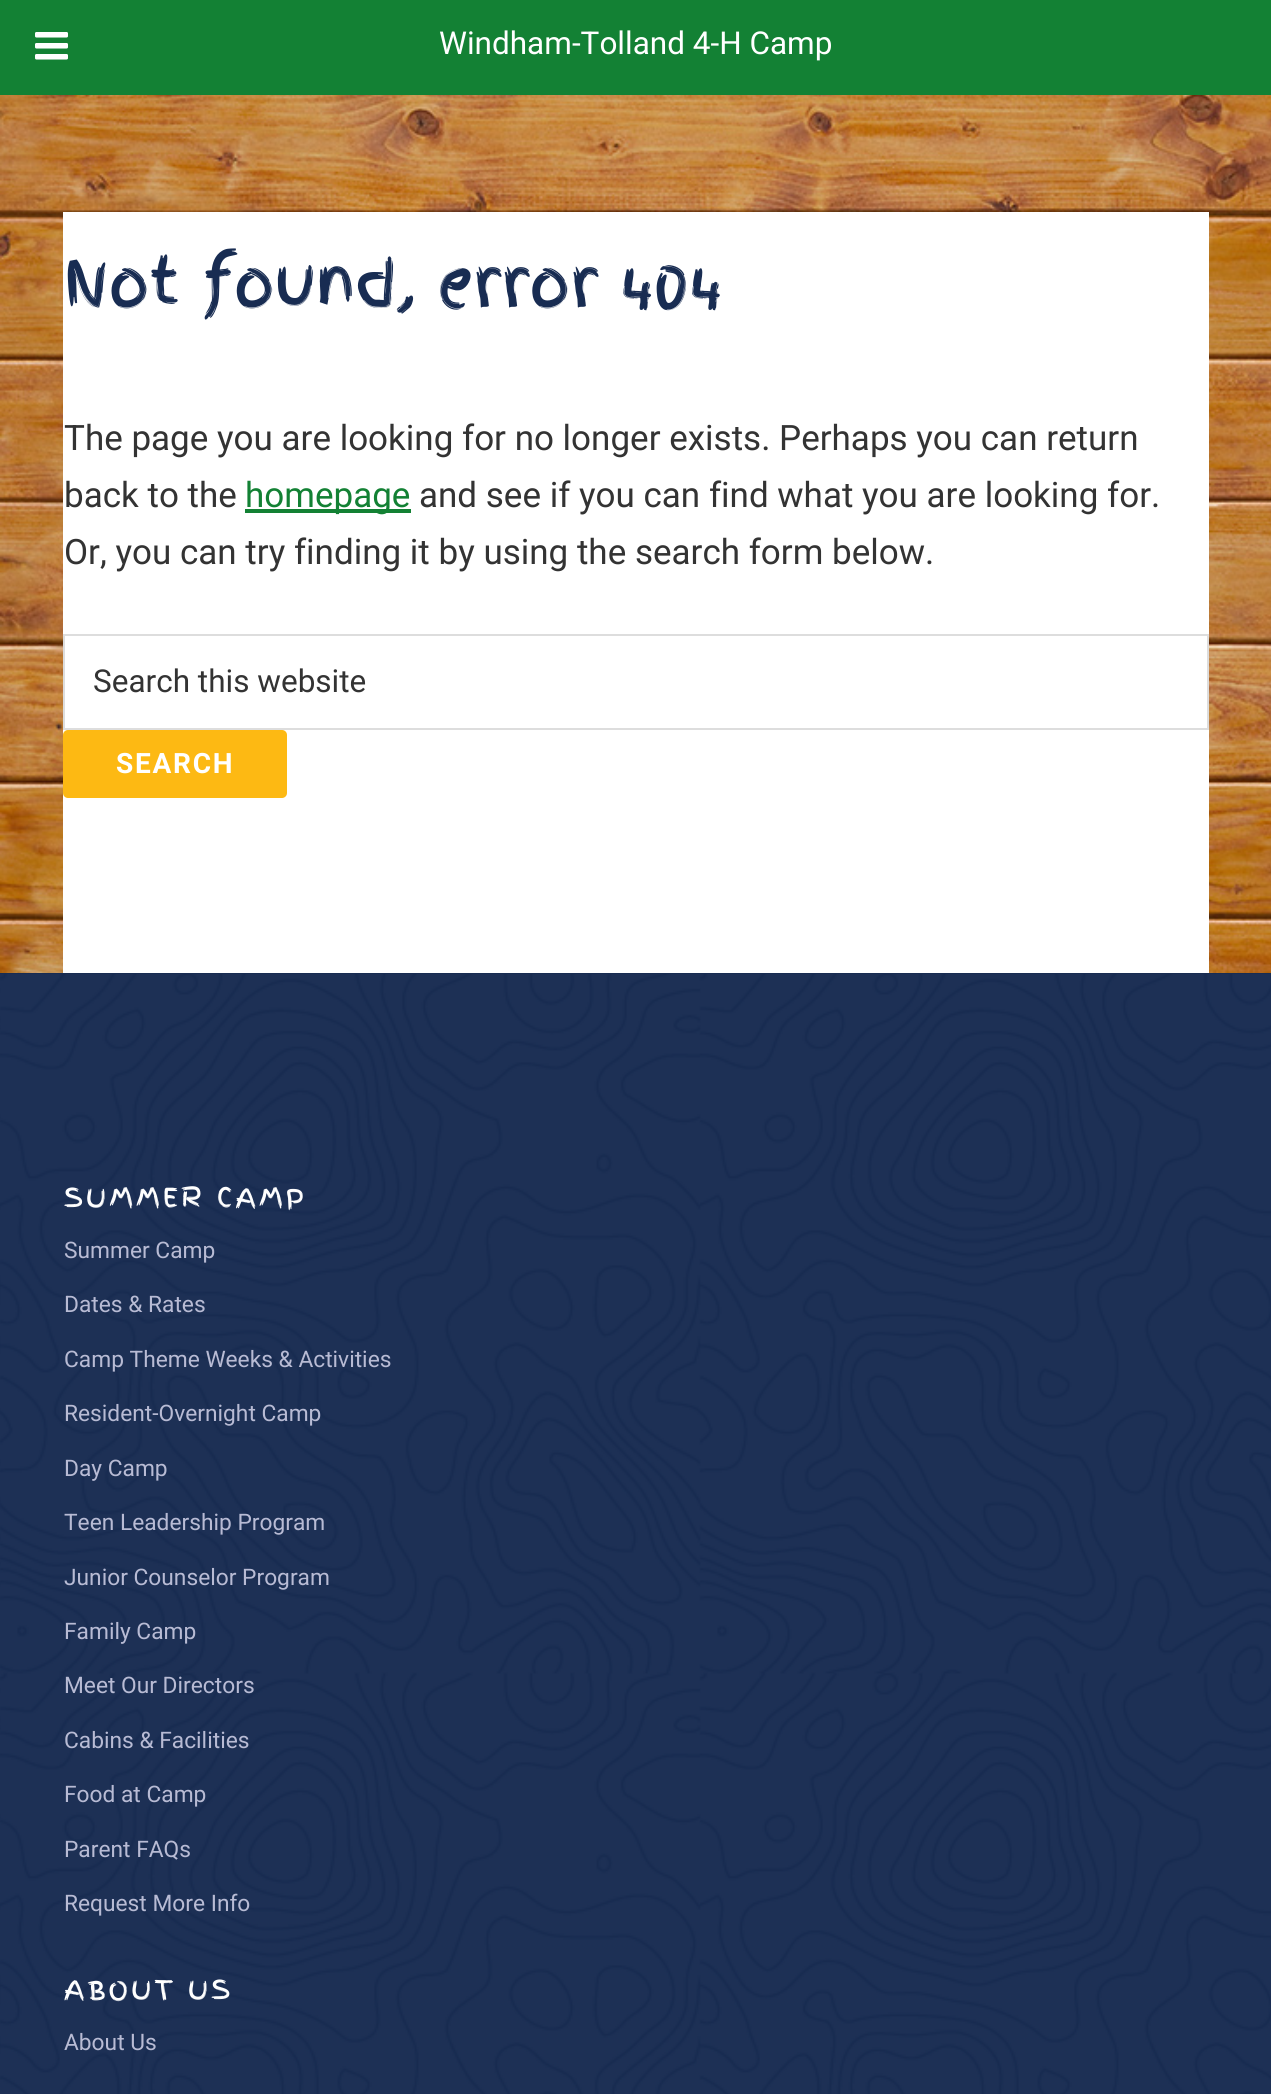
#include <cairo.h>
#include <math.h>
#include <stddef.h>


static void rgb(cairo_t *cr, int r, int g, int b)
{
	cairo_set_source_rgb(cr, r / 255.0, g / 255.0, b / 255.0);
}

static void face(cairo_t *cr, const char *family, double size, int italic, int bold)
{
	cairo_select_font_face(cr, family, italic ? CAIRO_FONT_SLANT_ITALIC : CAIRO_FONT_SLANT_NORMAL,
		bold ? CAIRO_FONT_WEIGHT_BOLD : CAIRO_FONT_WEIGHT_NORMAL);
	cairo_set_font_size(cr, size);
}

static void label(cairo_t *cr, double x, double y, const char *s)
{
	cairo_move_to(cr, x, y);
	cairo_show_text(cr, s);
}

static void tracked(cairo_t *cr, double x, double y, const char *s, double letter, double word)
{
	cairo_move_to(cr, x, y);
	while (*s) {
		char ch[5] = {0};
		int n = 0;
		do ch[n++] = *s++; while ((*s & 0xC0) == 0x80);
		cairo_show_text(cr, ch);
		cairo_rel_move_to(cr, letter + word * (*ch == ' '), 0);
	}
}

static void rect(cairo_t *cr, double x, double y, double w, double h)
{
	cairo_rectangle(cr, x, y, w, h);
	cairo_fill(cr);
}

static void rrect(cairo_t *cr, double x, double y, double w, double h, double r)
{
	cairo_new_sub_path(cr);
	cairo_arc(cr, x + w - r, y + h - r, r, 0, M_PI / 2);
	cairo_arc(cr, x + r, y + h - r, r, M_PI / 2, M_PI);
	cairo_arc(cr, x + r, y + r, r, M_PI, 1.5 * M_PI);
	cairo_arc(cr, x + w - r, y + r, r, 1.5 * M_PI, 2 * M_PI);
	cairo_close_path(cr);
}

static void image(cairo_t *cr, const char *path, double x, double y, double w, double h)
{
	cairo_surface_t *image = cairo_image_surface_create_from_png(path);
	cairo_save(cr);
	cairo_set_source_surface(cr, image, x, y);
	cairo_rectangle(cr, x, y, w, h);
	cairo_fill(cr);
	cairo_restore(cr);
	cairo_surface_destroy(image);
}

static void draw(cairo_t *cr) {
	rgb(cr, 255, 255, 255);
	cairo_paint(cr);
	rgb(cr, 19, 129, 52);
	rect(cr, 0, 0, 1271, 95);
	image(cr, "image0.png", 35, 32, 33, 28);
	face(cr, "Roboto", 31.5, 0, 0);
	rgb(cr, 255, 255, 255);
	label(cr, 439, 54, "Windham-Tolland 4-H Camp");
	image(cr, "image1.png", 0, 95, 1271, 878);
	rect(cr, 63, 212, 1146, 761);
	face(cr, "Finger Paint", 63, 0, 0);
	rgb(cr, 24, 44, 82);
	label(cr, 64, 306, "Not found, error 404");
	face(cr, "Roboto", 35, 0, 0);
	rgb(cr, 51, 51, 51);
	label(cr, 64, 450, "The page you are looking for no longer exists. Perhaps you can return");
	label(cr, 64, 507, "back to the");
	rgb(cr, 19, 129, 52);
	rect(cr, 245, 509, 166, 4);
	label(cr, 245, 507, "homepage");
	rgb(cr, 51, 51, 51);
	label(cr, 419, 507, "and see if you can find what you are looking for.");
	label(cr, 64, 564, "Or, you can try finding it by using the search form below.");
	cairo_rectangle(cr, 64, 635, 1144, 94);
	rgb(cr, 221, 221, 221);
	cairo_stroke(cr);
	face(cr, "Roboto", 31.5, 0, 0);
	rgb(cr, 51, 51, 51);
	label(cr, 93, 692, "Search this website");
	rgb(cr, 253, 185, 19);
	rrect(cr, 63, 730, 224, 68, 5);
	cairo_fill(cr);
	face(cr, "Roboto", 28, 0, 1);
	rgb(cr, 255, 255, 255);
	tracked(cr, 116, 773, "SEARCH", 1.75, 0);
	rgb(cr, 24, 44, 82);
	rect(cr, 0, 973, 1271, 1);
	image(cr, "image2.png", 0, 974, 1271, 1120);
	face(cr, "Finger Paint", 26.25, 0, 0);
	rgb(cr, 255, 255, 255);
	tracked(cr, 64, 1207, "SUMMER CAMP", 3.1, 0);
	face(cr, "Roboto", 22.75, 0, 0);
	rgb(cr, 184, 187, 212);
	label(cr, 64, 1258, "Summer Camp");
	label(cr, 64, 1312, "Dates & Rates");
	label(cr, 64, 1367, "Camp Theme Weeks & Activities");
	label(cr, 64, 1421, "Resident-Overnight Camp");
	label(cr, 64, 1476, "Day Camp");
	label(cr, 64, 1530, "Teen Leadership Program");
	label(cr, 64, 1585, "Junior Counselor Program");
	label(cr, 64, 1639, "Family Camp");
	label(cr, 64, 1693, "Meet Our Directors");
	label(cr, 64, 1748, "Cabins & Facilities");
	label(cr, 64, 1802, "Food at Camp");
	label(cr, 64, 1857, "Parent FAQs");
	label(cr, 64, 1911, "Request More Info");
	face(cr, "Finger Paint", 26.25, 0, 0);
	rgb(cr, 255, 255, 255);
	tracked(cr, 64, 1999, "ABOUT US", 3.1, 0);
	face(cr, "Roboto", 22.75, 0, 0);
	rgb(cr, 184, 187, 212);
	label(cr, 64, 2050, "About Us");
}

int main(void) {
	cairo_surface_t *surface = cairo_image_surface_create(CAIRO_FORMAT_RGB24, 1271, 2094);
	cairo_t *cr = cairo_create(surface);
	cairo_font_options_t *options = cairo_font_options_create();
	cairo_font_options_set_hint_metrics(options, CAIRO_HINT_METRICS_OFF);
	cairo_font_options_set_hint_style(options, CAIRO_HINT_STYLE_NONE);
	cairo_set_font_options(cr, options);
	cairo_set_miter_limit(cr, 4);
	draw(cr);
	cairo_surface_write_to_png(surface, "render.png");
	cairo_font_options_destroy(options);
	cairo_destroy(cr);
	cairo_surface_destroy(surface);
	return 0;
}
